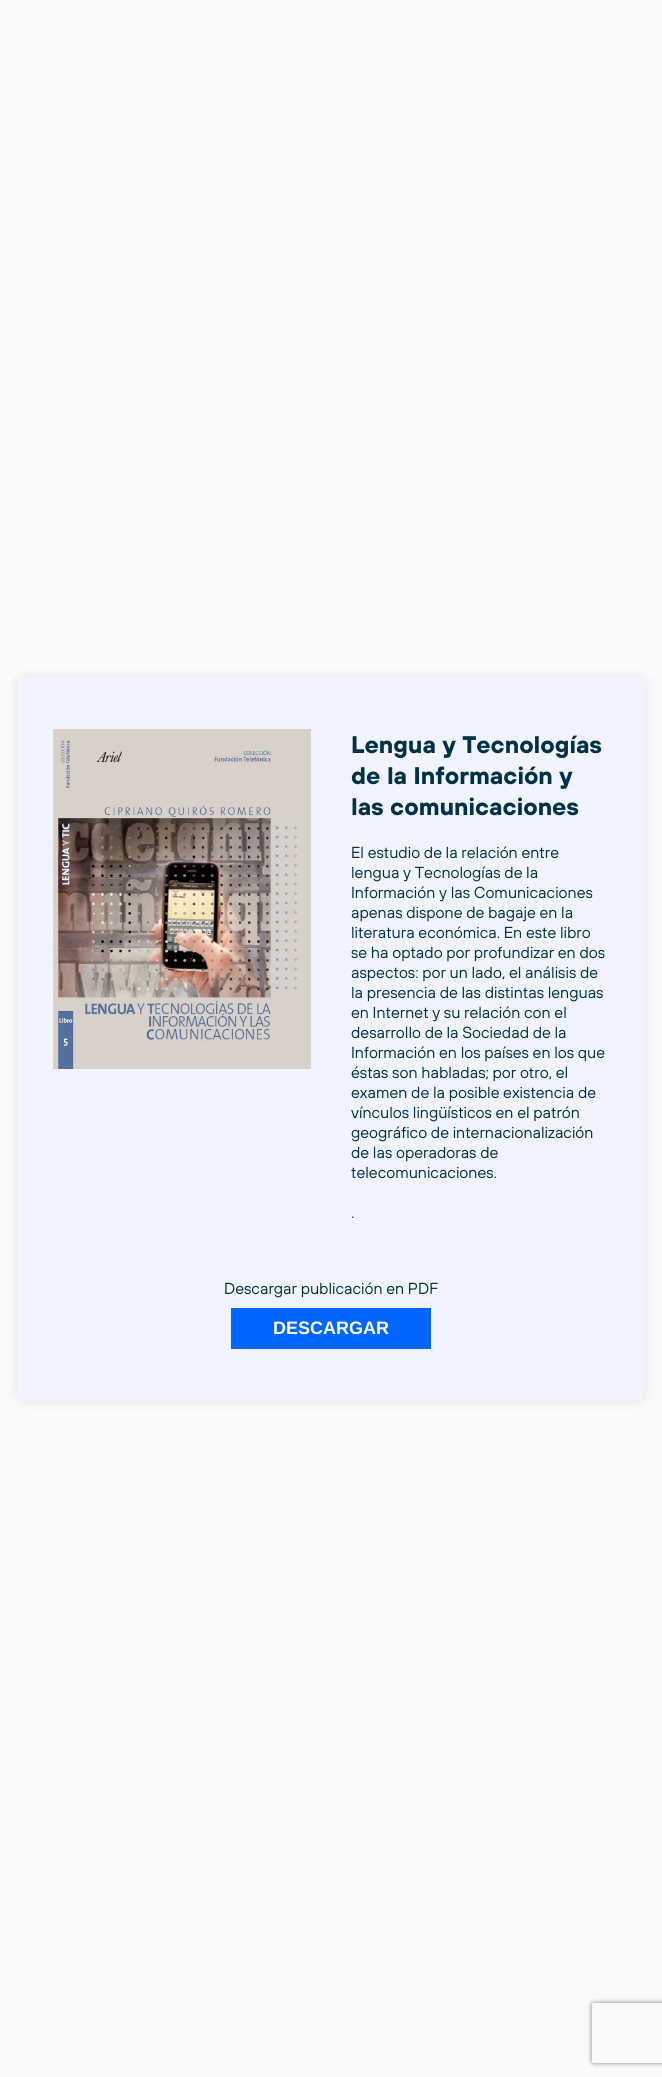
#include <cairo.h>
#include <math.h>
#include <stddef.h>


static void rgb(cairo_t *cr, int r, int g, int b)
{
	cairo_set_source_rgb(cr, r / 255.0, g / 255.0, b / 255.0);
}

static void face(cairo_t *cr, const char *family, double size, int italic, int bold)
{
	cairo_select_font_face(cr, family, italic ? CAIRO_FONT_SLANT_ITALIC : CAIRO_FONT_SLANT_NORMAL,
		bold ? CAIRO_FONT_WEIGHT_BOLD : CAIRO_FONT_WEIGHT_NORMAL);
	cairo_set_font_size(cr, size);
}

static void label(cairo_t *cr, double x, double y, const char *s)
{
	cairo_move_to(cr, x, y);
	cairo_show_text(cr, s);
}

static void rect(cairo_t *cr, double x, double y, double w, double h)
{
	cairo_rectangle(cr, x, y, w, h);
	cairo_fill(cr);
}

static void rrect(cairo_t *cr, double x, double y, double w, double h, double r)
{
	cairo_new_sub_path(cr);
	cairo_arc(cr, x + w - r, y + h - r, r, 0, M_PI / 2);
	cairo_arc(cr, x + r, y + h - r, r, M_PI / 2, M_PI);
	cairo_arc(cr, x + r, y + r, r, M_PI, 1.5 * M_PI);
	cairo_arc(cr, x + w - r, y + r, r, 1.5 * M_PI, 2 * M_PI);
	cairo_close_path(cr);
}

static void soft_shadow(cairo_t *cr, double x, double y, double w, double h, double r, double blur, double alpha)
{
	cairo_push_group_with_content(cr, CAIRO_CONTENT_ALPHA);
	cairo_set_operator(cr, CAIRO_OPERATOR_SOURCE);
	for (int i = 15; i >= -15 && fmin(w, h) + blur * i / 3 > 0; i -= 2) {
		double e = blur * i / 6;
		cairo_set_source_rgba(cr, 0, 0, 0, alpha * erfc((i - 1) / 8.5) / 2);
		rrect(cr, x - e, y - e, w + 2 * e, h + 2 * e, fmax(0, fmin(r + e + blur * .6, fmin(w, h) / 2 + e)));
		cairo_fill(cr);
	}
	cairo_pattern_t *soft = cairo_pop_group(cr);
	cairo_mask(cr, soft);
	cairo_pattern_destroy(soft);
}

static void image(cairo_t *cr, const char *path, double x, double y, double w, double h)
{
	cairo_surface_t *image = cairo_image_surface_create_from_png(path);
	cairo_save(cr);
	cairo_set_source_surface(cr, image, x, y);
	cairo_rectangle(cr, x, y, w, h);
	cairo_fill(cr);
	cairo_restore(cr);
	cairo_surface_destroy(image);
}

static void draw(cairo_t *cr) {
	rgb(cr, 250, 250, 250);
	cairo_paint(cr);
	rgb(cr, 0, 0, 0);
	soft_shadow(cr, 17, 677, 628, 724, 8, 5, 0.1);
	rgb(cr, 241, 244, 255);
	rrect(cr, 17, 677, 628, 724, 8);
	cairo_fill(cr);
	image(cr, "image0.png", 53, 729, 258, 340);
	face(cr, "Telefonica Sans", 24, 0, 1);
	rgb(cr, 0, 50, 69);
	label(cr, 351, 753, "Lengua y Tecnologías");
	label(cr, 351, 784, "de la Información y");
	label(cr, 351, 815, "las comunicaciones");
	face(cr, "Telefonica Sans", 16, 0, 0);
	label(cr, 351, 858, "El estudio de la relación entre");
	label(cr, 351, 878, "lengua y Tecnologías de la");
	label(cr, 351, 898, "Información y las Comunicaciones");
	label(cr, 351, 918, "apenas dispone de bagaje en la");
	label(cr, 351, 938, "literatura económica. En este libro");
	label(cr, 351, 958, "se ha optado por profundizar en dos");
	label(cr, 351, 978, "aspectos: por un lado, el análisis de");
	label(cr, 351, 998, "la presencia de las distintas lenguas");
	label(cr, 351, 1018, "en Internet y su relación con el");
	label(cr, 351, 1038, "desarrollo de la Sociedad de la");
	label(cr, 351, 1058, "Información en los países en los que");
	label(cr, 351, 1078, "éstas son habladas; por otro, el");
	label(cr, 351, 1098, "examen de la posible existencia de");
	label(cr, 351, 1118, "vínculos lingüísticos en el patrón");
	label(cr, 351, 1138, "geográfico de internacionalización");
	label(cr, 351, 1158, "de las operadoras de");
	label(cr, 351, 1178, "telecomunicaciones.");
	face(cr, "Telefonica Sans", 16, 1, 0);
	label(cr, 351, 1218, ".");
	face(cr, "Telefonica Sans", 16, 0, 0);
	label(cr, 224, 1294, "Descargar publicación en PDF");
	rgb(cr, 0, 102, 255);
	rect(cr, 231, 1308, 200, 41);
	face(cr, "Liberation Sans", 18, 0, 1);
	rgb(cr, 255, 255, 255);
	label(cr, 273, 1334, "DESCARGAR");
	cairo_save(cr);
	cairo_set_fill_rule(cr, CAIRO_FILL_RULE_EVEN_ODD);
	cairo_new_path(cr);
	cairo_move_to(cr, 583, 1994);
	cairo_line_to(cr, 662, 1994);
	cairo_line_to(cr, 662, 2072);
	cairo_line_to(cr, 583, 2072);
	cairo_close_path(cr);
	cairo_move_to(cr, 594, 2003);
	cairo_line_to(cr, 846, 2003);
	cairo_curve_to(cr, 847, 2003, 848, 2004, 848, 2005);
	cairo_line_to(cr, 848, 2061);
	cairo_curve_to(cr, 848, 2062, 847, 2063, 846, 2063);
	cairo_line_to(cr, 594, 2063);
	cairo_curve_to(cr, 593, 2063, 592, 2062, 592, 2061);
	cairo_line_to(cr, 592, 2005);
	cairo_curve_to(cr, 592, 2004, 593, 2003, 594, 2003);
	cairo_close_path(cr);
	cairo_clip(cr);
	rgb(cr, 128, 128, 128);
	soft_shadow(cr, 592, 2003, 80, 60, 2, 2.5, 1);
	cairo_restore(cr);
}

int main(void) {
	cairo_surface_t *surface = cairo_image_surface_create(CAIRO_FORMAT_RGB24, 662, 2077);
	cairo_t *cr = cairo_create(surface);
	cairo_font_options_t *options = cairo_font_options_create();
	cairo_font_options_set_hint_metrics(options, CAIRO_HINT_METRICS_OFF);
	cairo_font_options_set_hint_style(options, CAIRO_HINT_STYLE_NONE);
	cairo_set_font_options(cr, options);
	cairo_set_miter_limit(cr, 4);
	draw(cr);
	cairo_surface_write_to_png(surface, "render.png");
	cairo_font_options_destroy(options);
	cairo_destroy(cr);
	cairo_surface_destroy(surface);
	return 0;
}
